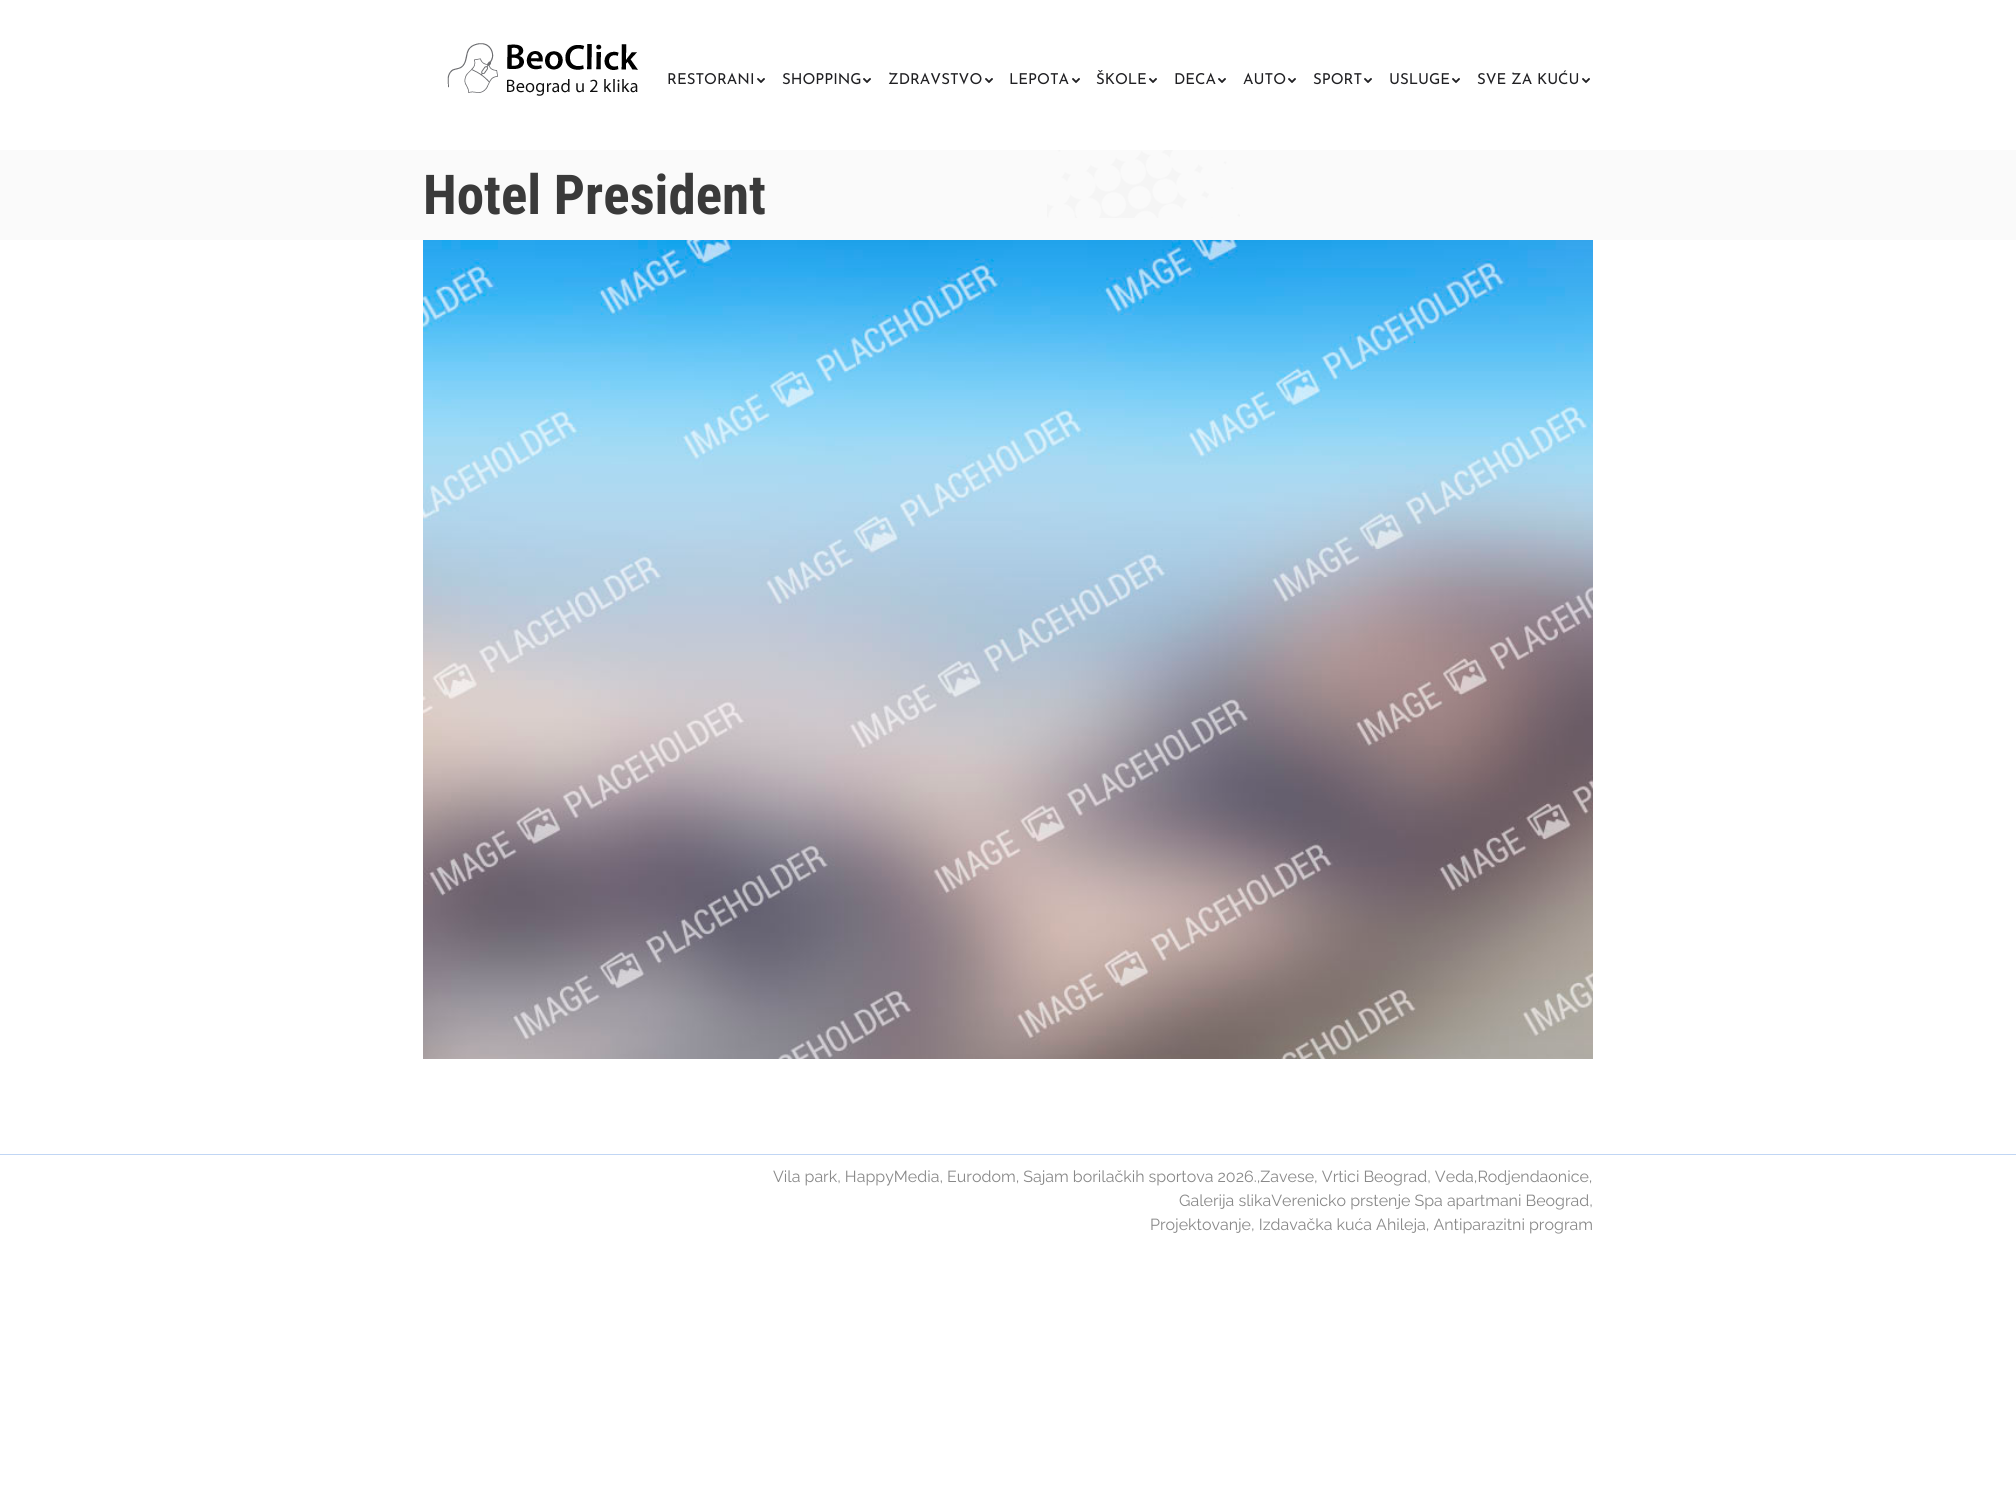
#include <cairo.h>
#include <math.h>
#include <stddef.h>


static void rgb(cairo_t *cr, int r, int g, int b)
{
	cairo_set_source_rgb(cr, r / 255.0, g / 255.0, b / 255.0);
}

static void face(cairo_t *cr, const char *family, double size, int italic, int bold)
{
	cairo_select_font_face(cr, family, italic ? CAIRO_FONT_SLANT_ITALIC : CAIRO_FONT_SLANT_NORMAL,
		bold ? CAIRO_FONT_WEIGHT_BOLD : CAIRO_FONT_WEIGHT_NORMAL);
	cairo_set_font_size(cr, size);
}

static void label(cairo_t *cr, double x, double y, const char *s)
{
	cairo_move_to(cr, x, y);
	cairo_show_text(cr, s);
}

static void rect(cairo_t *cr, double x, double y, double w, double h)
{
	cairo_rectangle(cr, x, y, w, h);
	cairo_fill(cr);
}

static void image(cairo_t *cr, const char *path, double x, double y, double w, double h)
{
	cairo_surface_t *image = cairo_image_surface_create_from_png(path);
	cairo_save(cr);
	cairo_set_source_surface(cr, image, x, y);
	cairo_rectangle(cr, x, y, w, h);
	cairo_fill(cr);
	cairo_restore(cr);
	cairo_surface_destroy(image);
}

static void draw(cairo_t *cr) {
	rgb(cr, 255, 255, 255);
	cairo_paint(cr);
	image(cr, "image0.png", 447, 43, 191, 53);
	face(cr, "Josefin Sans", 15, 0, 0);
	rgb(cr, 32, 32, 35);
	label(cr, 667, 84, "RESTORANI");
	image(cr, "image1.png", 757, 78, 8, 5);
	label(cr, 782, 84, "SHOPPING");
	image(cr, "image1.png", 863, 78, 8, 5);
	label(cr, 888, 84, "ZDRAVSTVO");
	image(cr, "image1.png", 985, 78, 8, 5);
	label(cr, 1009, 84, "LEPOTA");
	image(cr, "image1.png", 1072, 78, 8, 5);
	label(cr, 1096, 84, "ŠKOLE");
	image(cr, "image1.png", 1149, 78, 8, 5);
	label(cr, 1174, 84, "DECA");
	image(cr, "image1.png", 1218, 78, 8, 5);
	label(cr, 1243, 84, "AUTO");
	image(cr, "image1.png", 1288, 78, 8, 5);
	label(cr, 1313, 84, "SPORT");
	image(cr, "image1.png", 1364, 78, 8, 5);
	label(cr, 1389, 84, "USLUGE");
	image(cr, "image1.png", 1452, 78, 8, 5);
	label(cr, 1477, 84, "SVE ZA KUĆU");
	image(cr, "image1.png", 1582, 78, 8, 5);
	rgb(cr, 250, 250, 250);
	rect(cr, 0, 150, 2016, 90);
	image(cr, "image2.png", 1047, 150, 193, 68);
	face(cr, "Roboto Condensed", 55, 0, 1);
	rgb(cr, 58, 58, 58);
	label(cr, 423, 214, "Hotel President");
	image(cr, "image3.png", 423, 240, 1170, 819);
	rgb(cr, 193, 214, 244);
	rect(cr, 0, 1154, 2016, 1);
	face(cr, "Raleway", 16, 0, 0);
	rgb(cr, 136, 136, 136);
	label(cr, 773, 1182, "Vila park, HappyMedia, Eurodom, Sajam borilačkih sportova 2026.,Zavese, Vrtici Beograd, Veda,Rodjendaonice,");
	label(cr, 1179, 1206, "Galerija slikaVerenicko prstenje Spa apartmani Beograd,");
	label(cr, 1150, 1230, "Projektovanje, Izdavačka kuća Ahileja, Antiparazitni program");
}

int main(void) {
	cairo_surface_t *surface = cairo_image_surface_create(CAIRO_FORMAT_RGB24, 2016, 1503);
	cairo_t *cr = cairo_create(surface);
	cairo_font_options_t *options = cairo_font_options_create();
	cairo_font_options_set_hint_metrics(options, CAIRO_HINT_METRICS_OFF);
	cairo_font_options_set_hint_style(options, CAIRO_HINT_STYLE_NONE);
	cairo_set_font_options(cr, options);
	cairo_set_miter_limit(cr, 4);
	draw(cr);
	cairo_surface_write_to_png(surface, "render.png");
	cairo_font_options_destroy(options);
	cairo_destroy(cr);
	cairo_surface_destroy(surface);
	return 0;
}
